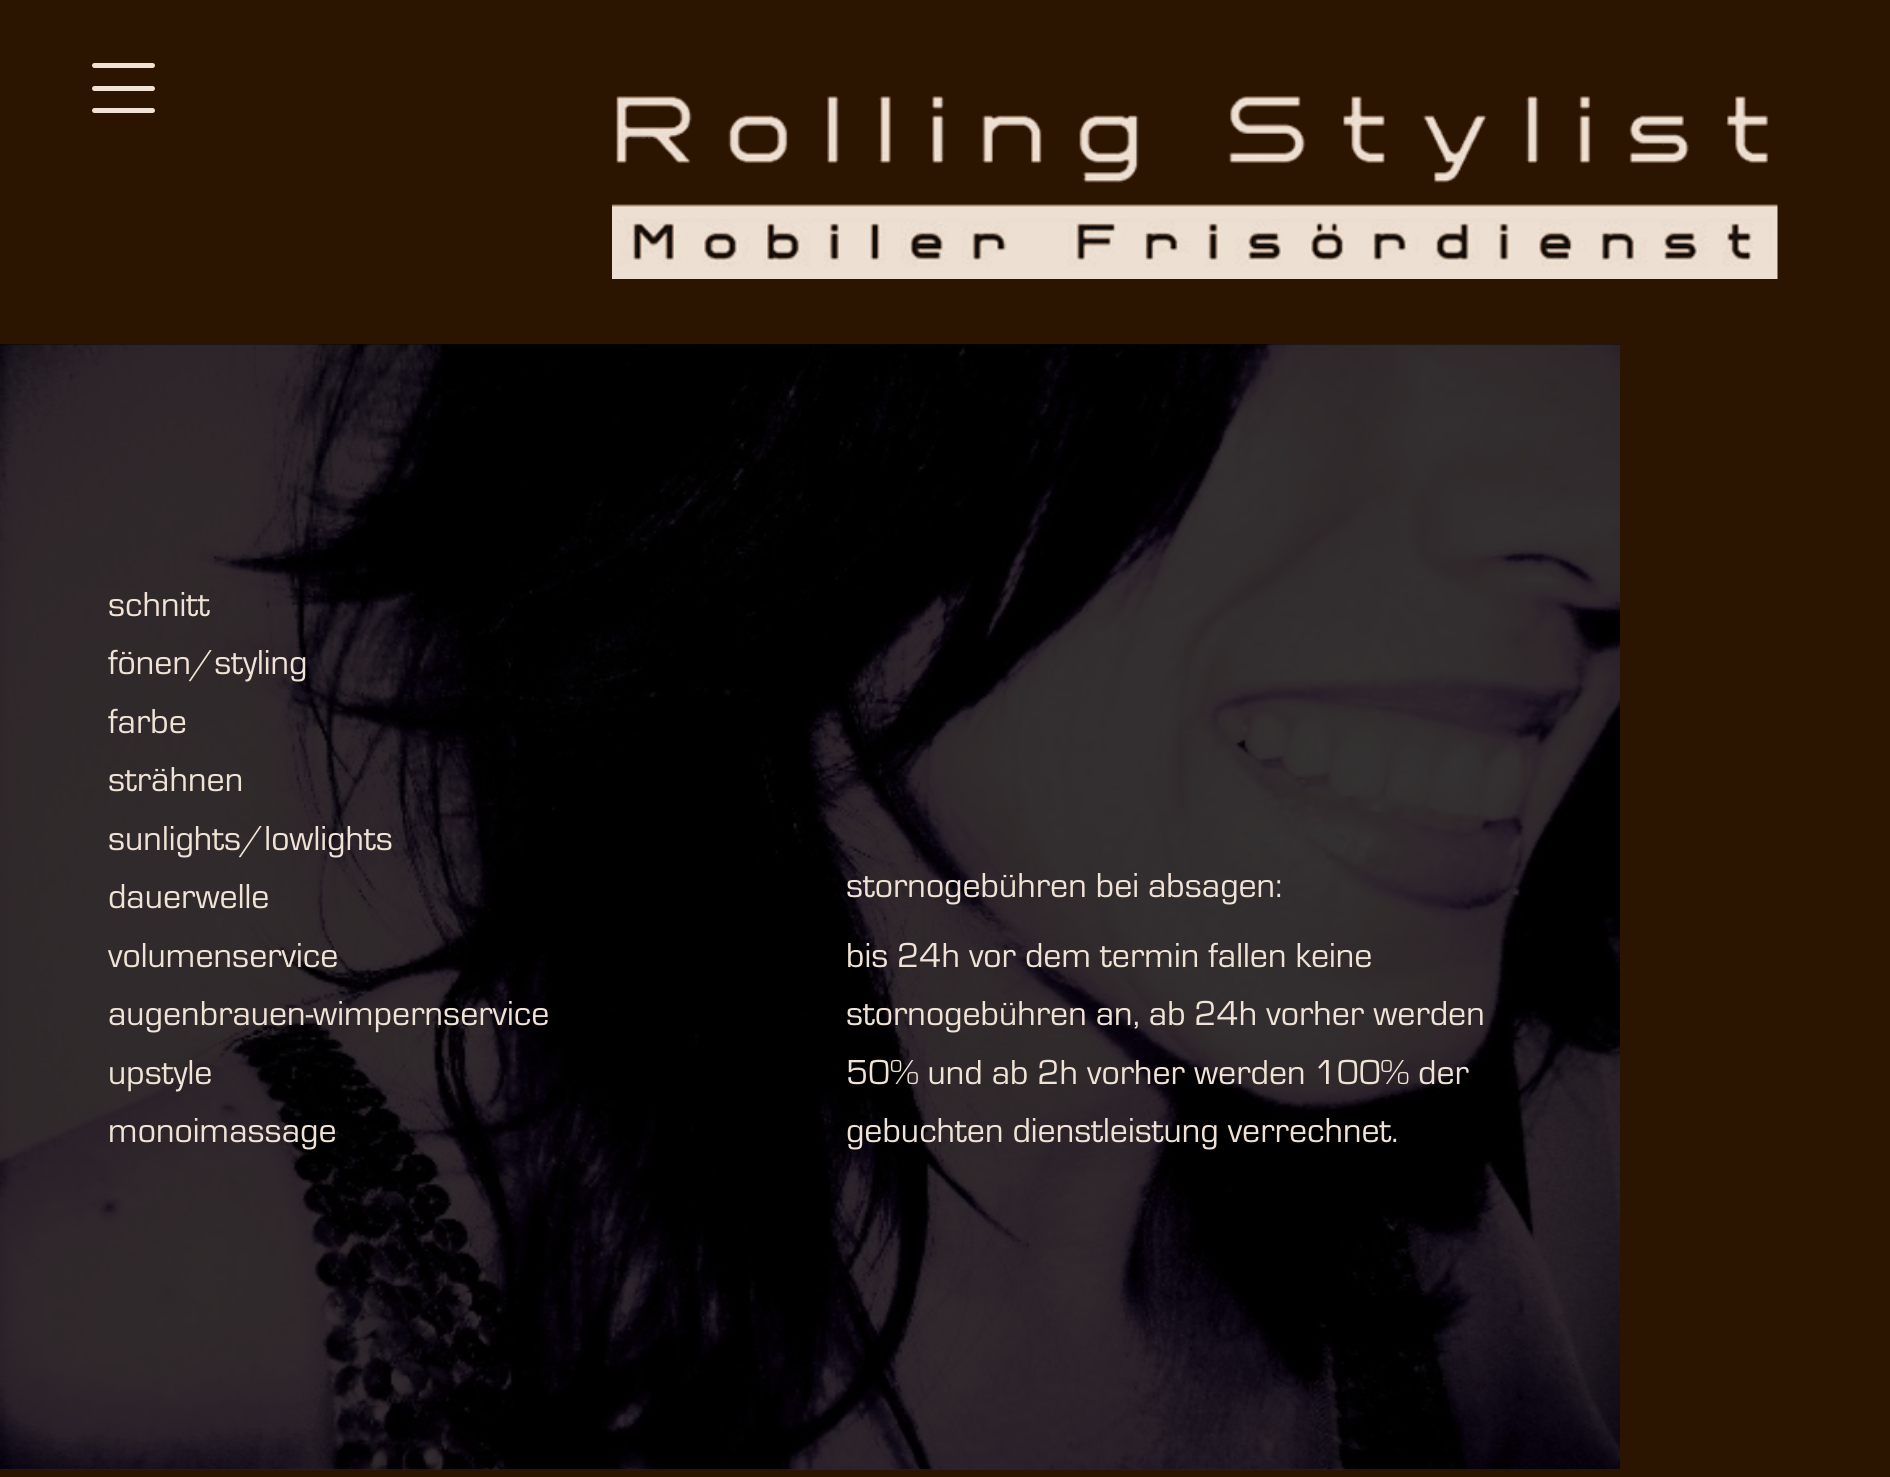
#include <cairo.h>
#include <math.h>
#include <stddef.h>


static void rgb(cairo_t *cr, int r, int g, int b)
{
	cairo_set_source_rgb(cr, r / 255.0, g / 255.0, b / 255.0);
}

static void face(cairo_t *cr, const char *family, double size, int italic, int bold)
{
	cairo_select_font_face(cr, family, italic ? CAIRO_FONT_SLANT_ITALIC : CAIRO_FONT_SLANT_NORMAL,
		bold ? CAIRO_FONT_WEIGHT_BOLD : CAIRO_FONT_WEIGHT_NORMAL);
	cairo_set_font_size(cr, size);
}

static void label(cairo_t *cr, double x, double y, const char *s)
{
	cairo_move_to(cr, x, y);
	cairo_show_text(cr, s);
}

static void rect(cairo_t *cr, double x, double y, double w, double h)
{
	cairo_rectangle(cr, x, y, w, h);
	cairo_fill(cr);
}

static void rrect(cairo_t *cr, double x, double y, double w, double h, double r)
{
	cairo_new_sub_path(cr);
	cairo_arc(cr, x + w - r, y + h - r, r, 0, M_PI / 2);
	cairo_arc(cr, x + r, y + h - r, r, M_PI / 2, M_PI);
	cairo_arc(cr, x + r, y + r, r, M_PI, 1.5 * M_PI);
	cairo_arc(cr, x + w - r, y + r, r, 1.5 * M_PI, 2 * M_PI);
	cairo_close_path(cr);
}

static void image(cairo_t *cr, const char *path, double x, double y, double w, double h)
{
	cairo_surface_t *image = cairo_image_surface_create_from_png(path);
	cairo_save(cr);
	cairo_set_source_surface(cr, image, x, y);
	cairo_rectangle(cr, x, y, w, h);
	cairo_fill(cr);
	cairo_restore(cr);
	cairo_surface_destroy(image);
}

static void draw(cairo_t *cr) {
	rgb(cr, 44, 21, 0);
	cairo_paint(cr);
	rgb(cr, 9, 4, 0);
	rect(cr, 0, 344, 1620, 1);
	rgb(cr, 240, 227, 213);
	rrect(cr, 92, 86, 63, 5, 2.5);
	cairo_fill(cr);
	rrect(cr, 92, 63, 63, 5, 2.5);
	cairo_fill(cr);
	rrect(cr, 92, 108, 63, 5, 2.5);
	cairo_fill(cr);
	image(cr, "image0.png", 612, 96, 1166, 183);
	image(cr, "image1.png", 0, 344, 1620, 1126);
	face(cr, "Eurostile", 36, 0, 0);
	label(cr, 108, 616, "schnitt");
	label(cr, 108, 674, "fönen/styling");
	label(cr, 108, 733, "farbe");
	label(cr, 108, 791, "strähnen");
	label(cr, 108, 850, "sunlights/lowlights");
	label(cr, 108, 908, "dauerwelle");
	label(cr, 108, 967, "volumenservice");
	label(cr, 108, 1025, "augenbrauen-wimpernservice");
	label(cr, 108, 1084, "upstyle");
	label(cr, 108, 1142, "monoimassage");
	label(cr, 846, 897, "stornogebühren bei absagen:");
	label(cr, 846, 967, "bis 24h vor dem termin fallen keine");
	label(cr, 846, 1025, "stornogebühren an, ab 24h vorher werden");
	label(cr, 846, 1084, "50% und ab 2h vorher werden 100% der");
	label(cr, 846, 1142, "gebuchten dienstleistung verrechnet.");
}

int main(void) {
	cairo_surface_t *surface = cairo_image_surface_create(CAIRO_FORMAT_RGB24, 1890, 1477);
	cairo_t *cr = cairo_create(surface);
	cairo_font_options_t *options = cairo_font_options_create();
	cairo_font_options_set_hint_metrics(options, CAIRO_HINT_METRICS_OFF);
	cairo_font_options_set_hint_style(options, CAIRO_HINT_STYLE_NONE);
	cairo_set_font_options(cr, options);
	cairo_set_miter_limit(cr, 4);
	draw(cr);
	cairo_surface_write_to_png(surface, "render.png");
	cairo_font_options_destroy(options);
	cairo_destroy(cr);
	cairo_surface_destroy(surface);
	return 0;
}
